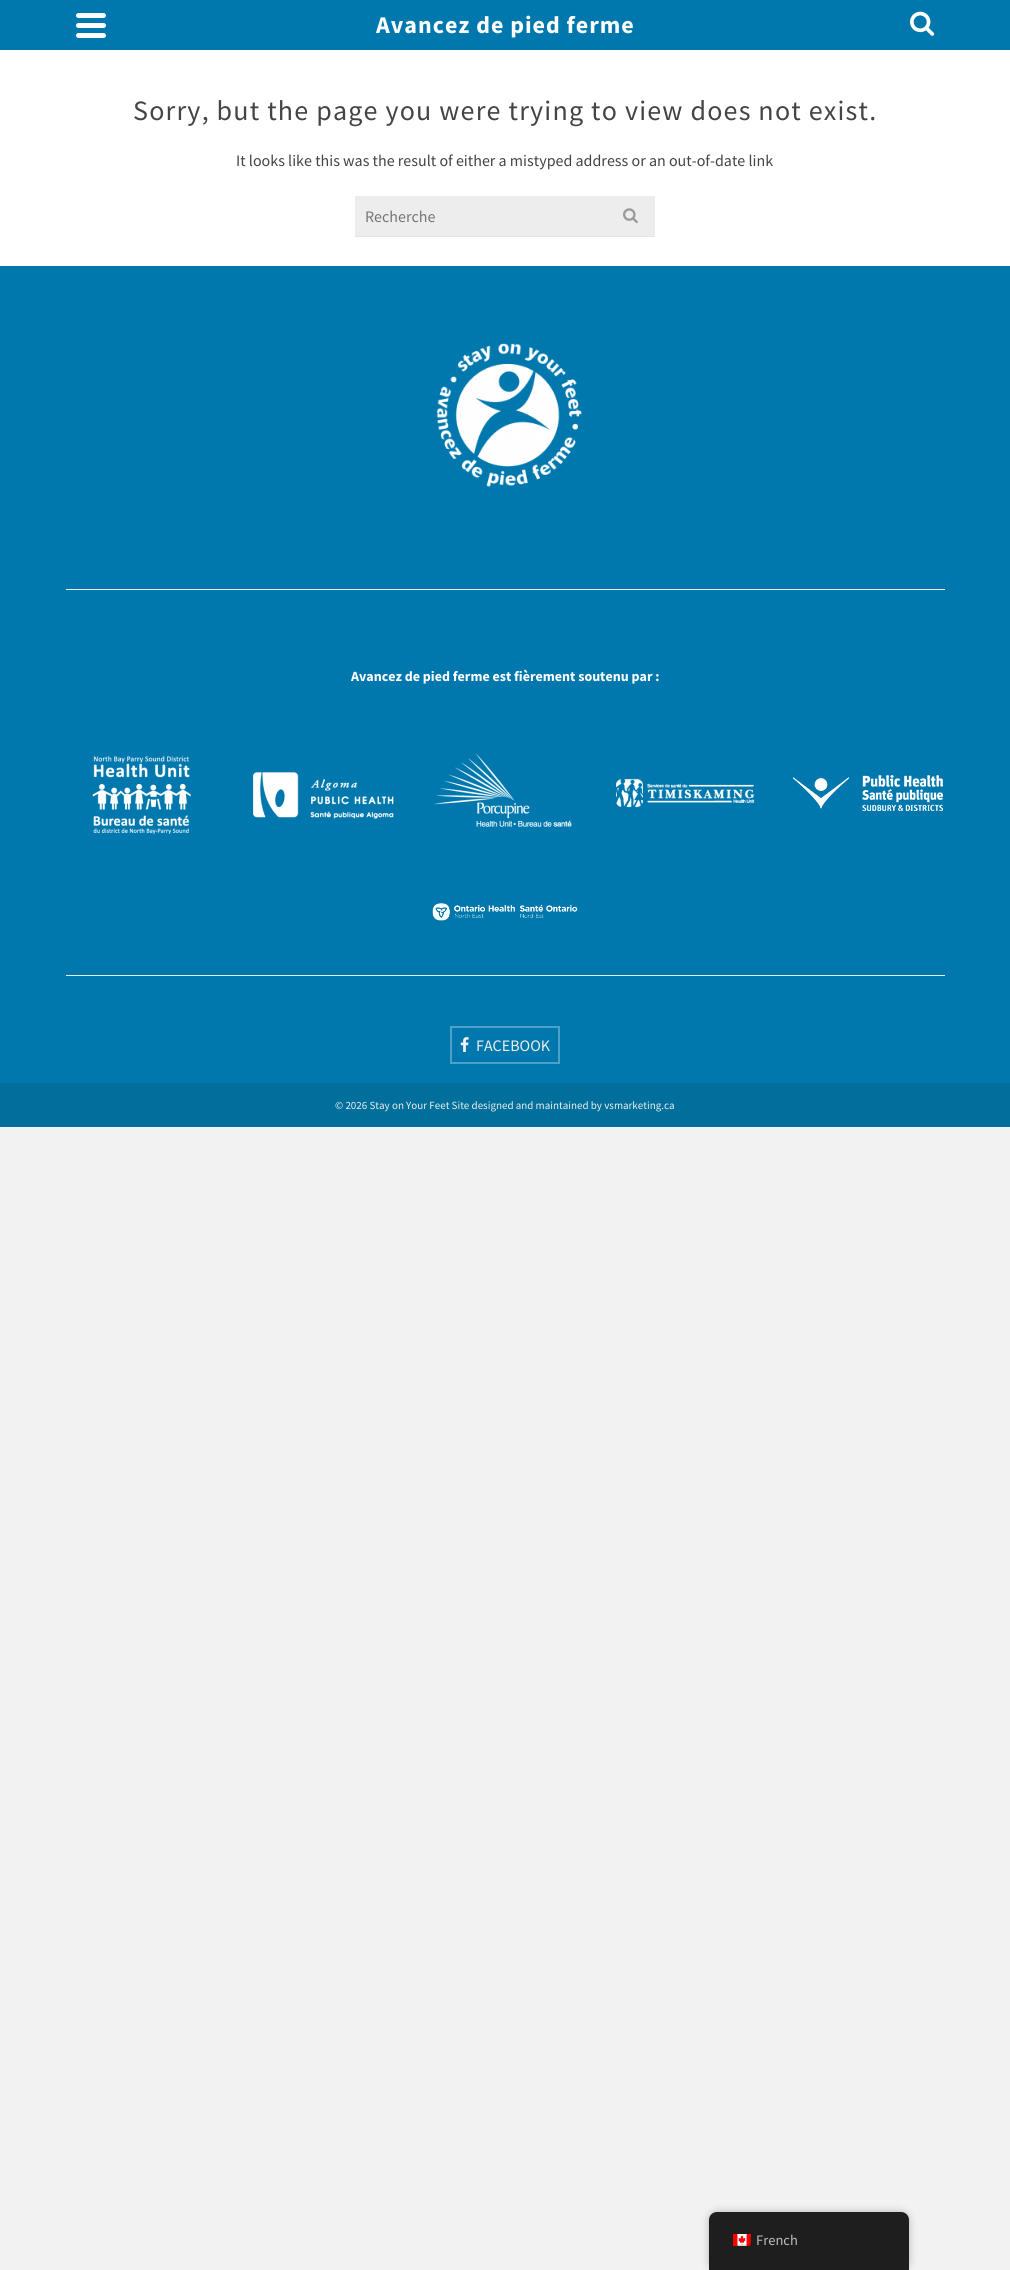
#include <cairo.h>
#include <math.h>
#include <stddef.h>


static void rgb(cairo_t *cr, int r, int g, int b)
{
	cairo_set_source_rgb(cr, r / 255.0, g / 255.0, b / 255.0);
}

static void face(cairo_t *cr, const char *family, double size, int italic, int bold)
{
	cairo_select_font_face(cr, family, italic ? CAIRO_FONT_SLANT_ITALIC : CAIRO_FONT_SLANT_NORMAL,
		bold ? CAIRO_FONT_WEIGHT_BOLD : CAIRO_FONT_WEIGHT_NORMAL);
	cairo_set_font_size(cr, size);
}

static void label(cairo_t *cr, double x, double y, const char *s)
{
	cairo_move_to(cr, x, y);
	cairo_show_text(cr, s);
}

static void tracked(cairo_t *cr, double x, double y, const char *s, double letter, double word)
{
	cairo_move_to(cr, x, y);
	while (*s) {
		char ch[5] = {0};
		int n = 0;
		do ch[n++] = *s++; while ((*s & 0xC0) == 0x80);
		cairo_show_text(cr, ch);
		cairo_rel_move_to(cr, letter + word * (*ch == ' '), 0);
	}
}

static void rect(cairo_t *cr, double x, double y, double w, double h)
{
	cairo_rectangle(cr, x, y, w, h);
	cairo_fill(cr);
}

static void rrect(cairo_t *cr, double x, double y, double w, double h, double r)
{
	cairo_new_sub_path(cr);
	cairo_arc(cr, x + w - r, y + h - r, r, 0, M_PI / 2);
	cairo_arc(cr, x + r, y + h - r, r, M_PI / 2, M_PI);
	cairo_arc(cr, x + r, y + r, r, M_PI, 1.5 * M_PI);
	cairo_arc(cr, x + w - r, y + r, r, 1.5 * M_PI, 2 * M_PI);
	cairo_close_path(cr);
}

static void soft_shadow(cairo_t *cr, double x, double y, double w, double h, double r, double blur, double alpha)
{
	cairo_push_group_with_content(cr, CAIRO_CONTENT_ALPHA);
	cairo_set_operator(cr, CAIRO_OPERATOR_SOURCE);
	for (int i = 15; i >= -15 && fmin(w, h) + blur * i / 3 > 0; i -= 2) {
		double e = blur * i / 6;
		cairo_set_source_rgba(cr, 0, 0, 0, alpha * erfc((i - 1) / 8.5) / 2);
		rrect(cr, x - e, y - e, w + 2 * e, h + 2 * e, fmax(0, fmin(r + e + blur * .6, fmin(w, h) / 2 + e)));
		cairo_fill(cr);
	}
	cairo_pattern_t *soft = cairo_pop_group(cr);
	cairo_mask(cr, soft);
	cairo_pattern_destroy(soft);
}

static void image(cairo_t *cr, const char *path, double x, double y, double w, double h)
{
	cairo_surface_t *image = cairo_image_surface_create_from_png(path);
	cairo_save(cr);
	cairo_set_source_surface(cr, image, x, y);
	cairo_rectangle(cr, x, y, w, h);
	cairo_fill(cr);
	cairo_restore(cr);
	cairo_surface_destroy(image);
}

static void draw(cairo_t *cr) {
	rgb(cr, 242, 242, 242);
	cairo_paint(cr);
	rgb(cr, 0, 120, 174);
	rect(cr, 0, 0, 1010, 50);
	rgb(cr, 255, 255, 255);
	rrect(cr, 76, 13, 30, 5, 2.5);
	cairo_fill(cr);
	rrect(cr, 76, 23, 30, 5, 2.5);
	cairo_fill(cr);
	rrect(cr, 76, 33, 30, 5, 2.5);
	cairo_fill(cr);
	face(cr, "Source Sans Pro", 24, 0, 1);
	tracked(cr, 376, 33, "Avancez de pied ferme", 1, 0);
	image(cr, "image0.png", 910, 11, 25, 25);
	rect(cr, 0, 50, 1010, 216);
	face(cr, "Source Sans Pro", 28, 0, 0);
	rgb(cr, 68, 68, 68);
	tracked(cr, 133, 120, "Sorry, but the page you were trying to view does not exist.", 1.2, 0);
	face(cr, "Source Sans Pro", 16, 0, 0);
	label(cr, 236, 166, "It looks like this was the result of either a mistyped address or an out-of-date link");
	rgb(cr, 230, 230, 230);
	rect(cr, 355, 236, 300, 1);
	rgb(cr, 237, 237, 237);
	rect(cr, 355, 196, 300, 40);
	rgb(cr, 117, 117, 117);
	label(cr, 365, 222, "Recherche");
	image(cr, "image1.png", 623, 208, 15, 16);
	rgb(cr, 0, 120, 174);
	rect(cr, 0, 266, 1010, 817);
	image(cr, "image2.png", 436, 343, 146, 144);
	rgb(cr, 238, 238, 238);
	rect(cr, 66, 589, 879, 1);
	face(cr, "Source Sans Pro", 14, 0, 1);
	rgb(cr, 255, 255, 255);
	label(cr, 351, 681, "Avancez de pied ferme est fièrement soutenu par :");
	image(cr, "image3.png", 92, 755, 99, 80);
	image(cr, "image4.png", 253, 772, 141, 47);
	image(cr, "image5.png", 434, 753, 138, 74);
	image(cr, "image6.png", 615, 778, 140, 30);
	image(cr, "image7.png", 793, 775, 150, 36);
	image(cr, "image8.png", 432, 903, 146, 18);
	rgb(cr, 238, 238, 238);
	rect(cr, 66, 975, 879, 1);
	cairo_rectangle(cr, 451, 1027, 108, 36);
	rgb(cr, 77, 161, 198);
	cairo_stroke(cr);
	image(cr, "image9.png", 460, 1037, 9, 15);
	face(cr, "Source Sans Pro", 16, 0, 0);
	rgb(cr, 238, 238, 238);
	label(cr, 476, 1051, "FACEBOOK");
	rgb(cr, 0, 111, 155);
	rect(cr, 0, 1083, 1010, 44);
	face(cr, "Source Sans Pro", 11, 0, 0);
	rgb(cr, 238, 238, 238);
	label(cr, 335, 1109, "© 2026 Stay on Your Feet Site designed and maintained by vsmarketing.ca");
	rgb(cr, 0, 0, 0);
	soft_shadow(cr, 709, 2212, 200, 58, 8, 4, 0.25);
	rgb(cr, 30, 30, 30);
	cairo_new_path(cr);
	cairo_move_to(cr, 717, 2212);
	cairo_line_to(cr, 901, 2212);
	cairo_curve_to(cr, 905.5, 2212, 909, 2215.5, 909, 2220);
	cairo_line_to(cr, 909, 2270);
	cairo_line_to(cr, 709, 2270);
	cairo_line_to(cr, 709, 2220);
	cairo_curve_to(cr, 709, 2215.5, 712.5, 2212, 717, 2212);
	cairo_close_path(cr);
	cairo_fill(cr);
	image(cr, "image10.png", 733, 2234, 18, 12);
	face(cr, "Source Sans Pro", 14.5, 0, 0);
	rgb(cr, 189, 189, 189);
	label(cr, 756, 2245, "French");
}

int main(void) {
	cairo_surface_t *surface = cairo_image_surface_create(CAIRO_FORMAT_RGB24, 1010, 2270);
	cairo_t *cr = cairo_create(surface);
	cairo_font_options_t *options = cairo_font_options_create();
	cairo_font_options_set_hint_metrics(options, CAIRO_HINT_METRICS_OFF);
	cairo_font_options_set_hint_style(options, CAIRO_HINT_STYLE_NONE);
	cairo_set_font_options(cr, options);
	cairo_set_miter_limit(cr, 4);
	draw(cr);
	cairo_surface_write_to_png(surface, "render.png");
	cairo_font_options_destroy(options);
	cairo_destroy(cr);
	cairo_surface_destroy(surface);
	return 0;
}
